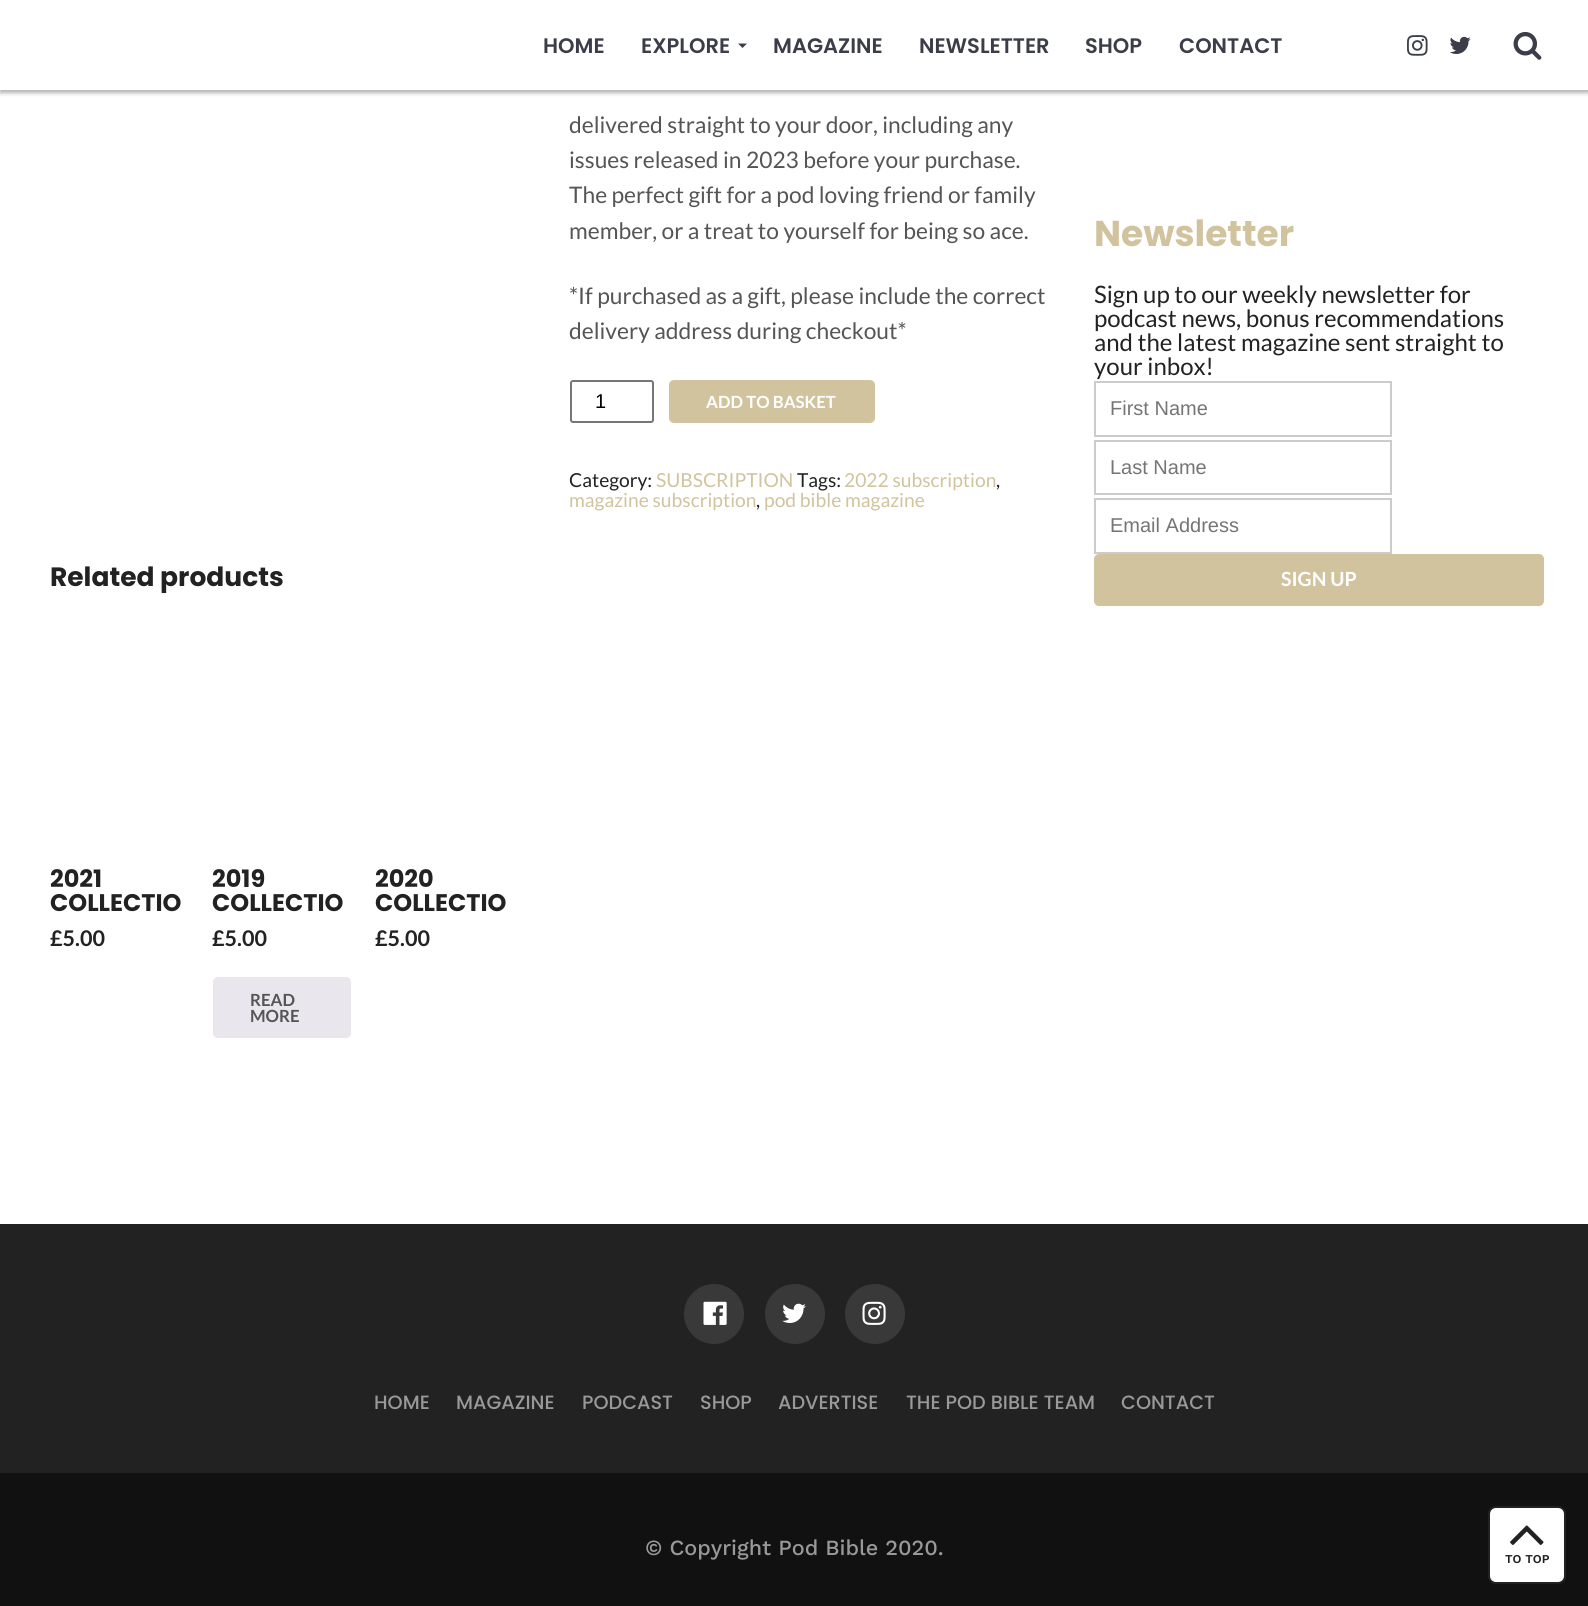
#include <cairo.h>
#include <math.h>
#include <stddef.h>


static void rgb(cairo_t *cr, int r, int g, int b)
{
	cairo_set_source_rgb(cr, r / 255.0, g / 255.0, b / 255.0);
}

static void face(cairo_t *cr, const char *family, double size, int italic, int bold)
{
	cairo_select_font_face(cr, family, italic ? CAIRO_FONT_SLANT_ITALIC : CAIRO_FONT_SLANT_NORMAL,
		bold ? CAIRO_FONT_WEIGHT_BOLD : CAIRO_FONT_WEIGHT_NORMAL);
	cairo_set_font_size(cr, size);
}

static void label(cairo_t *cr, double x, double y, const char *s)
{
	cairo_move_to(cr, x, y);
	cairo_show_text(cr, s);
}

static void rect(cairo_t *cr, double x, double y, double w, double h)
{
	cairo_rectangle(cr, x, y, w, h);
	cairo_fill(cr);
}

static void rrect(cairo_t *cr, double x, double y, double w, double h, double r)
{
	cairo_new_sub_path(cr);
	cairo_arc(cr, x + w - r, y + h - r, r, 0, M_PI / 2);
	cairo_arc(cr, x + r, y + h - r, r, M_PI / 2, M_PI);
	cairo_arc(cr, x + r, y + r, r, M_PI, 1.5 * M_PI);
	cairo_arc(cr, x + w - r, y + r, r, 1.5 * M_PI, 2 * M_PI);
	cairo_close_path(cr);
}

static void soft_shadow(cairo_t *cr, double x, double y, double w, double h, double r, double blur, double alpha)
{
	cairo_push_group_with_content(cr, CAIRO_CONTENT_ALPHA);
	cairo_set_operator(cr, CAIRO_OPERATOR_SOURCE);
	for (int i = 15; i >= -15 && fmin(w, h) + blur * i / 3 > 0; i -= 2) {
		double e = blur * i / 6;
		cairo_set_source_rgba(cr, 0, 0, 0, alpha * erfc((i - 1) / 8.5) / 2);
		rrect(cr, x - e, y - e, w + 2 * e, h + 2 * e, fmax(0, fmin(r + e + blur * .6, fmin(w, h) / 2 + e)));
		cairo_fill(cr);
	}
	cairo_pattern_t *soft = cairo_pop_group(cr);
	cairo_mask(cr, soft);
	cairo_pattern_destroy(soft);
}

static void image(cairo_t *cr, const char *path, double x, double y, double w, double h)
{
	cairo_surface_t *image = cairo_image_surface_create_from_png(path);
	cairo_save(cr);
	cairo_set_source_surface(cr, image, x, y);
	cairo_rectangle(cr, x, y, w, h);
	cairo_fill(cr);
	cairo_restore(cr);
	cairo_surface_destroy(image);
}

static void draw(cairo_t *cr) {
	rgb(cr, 255, 255, 255);
	cairo_paint(cr);
	rgb(cr, 0, 0, 0);
	soft_shadow(cr, 0, 3, 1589, 90, 0, 2, 0.3);
	rgb(cr, 255, 255, 255);
	rect(cr, 0, 0, 1588, 90);
	face(cr, "Poppins SemiBold", 21, 0, 0);
	rgb(cr, 59, 61, 72);
	label(cr, 543, 53, "HOME");
	label(cr, 641, 53, "EXPLORE");
	cairo_new_path(cr);
	cairo_move_to(cr, 738, 43.5);
	cairo_line_to(cr, 747, 43.5);
	cairo_line_to(cr, 742.5, 48);
	cairo_close_path(cr);
	cairo_fill(cr);
	label(cr, 773, 53, "MAGAZINE");
	label(cr, 919, 53, "NEWSLETTER");
	label(cr, 1085, 53, "SHOP");
	label(cr, 1179, 53, "CONTACT");
	image(cr, "image0.png", 1407, 35, 21, 21);
	image(cr, "image1.png", 1449, 36, 22, 18);
	image(cr, "image2.png", 1513, 31, 29, 29);
	face(cr, "Lato", 22.8, 0, 0);
	rgb(cr, 85, 85, 85);
	label(cr, 569, 133, "delivered straight to your door, including any");
	label(cr, 569, 168, "issues released in 2023 before your purchase.");
	label(cr, 569, 203, "The perfect gift for a pod loving friend or family");
	label(cr, 569, 239, "member, or a treat to yourself for being so ace.");
	label(cr, 569, 304, "*If purchased as a gift, please include the correct");
	label(cr, 569, 339, "delivery address during checkout*");
	rrect(cr, 571, 381, 82, 41, 2);
	rgb(cr, 118, 118, 118);
	cairo_stroke(cr);
	face(cr, "Liberation Sans", 20, 0, 0);
	rgb(cr, 0, 0, 0);
	label(cr, 595, 408, "1");
	rgb(cr, 209, 195, 157);
	rrect(cr, 669, 380, 206, 43, 5);
	cairo_fill(cr);
	face(cr, "Lato", 16.75, 0, 1);
	rgb(cr, 255, 255, 255);
	label(cr, 706, 408, "ADD TO BASKET");
	face(cr, "Lato", 19.25, 0, 0);
	rgb(cr, 34, 34, 34);
	label(cr, 569, 487, "Category:");
	rgb(cr, 209, 195, 157);
	label(cr, 656, 487, "SUBSCRIPTION");
	rgb(cr, 34, 34, 34);
	label(cr, 797, 487, "Tags:");
	rgb(cr, 209, 195, 157);
	label(cr, 844, 487, "2022 subscription");
	rgb(cr, 34, 34, 34);
	label(cr, 996, 487, ",");
	rgb(cr, 209, 195, 157);
	label(cr, 569, 507, "magazine subscription");
	rgb(cr, 34, 34, 34);
	label(cr, 756, 507, ",");
	rgb(cr, 209, 195, 157);
	label(cr, 764, 507, "pod bible magazine");
	face(cr, "Poppins", 26.5, 0, 1);
	rgb(cr, 34, 34, 34);
	label(cr, 50, 586, "Related products");
	face(cr, "Poppins", 24, 0, 1);
	label(cr, 50, 887, "2021");
	label(cr, 50, 911, "COLLECTIO");
	face(cr, "Lato", 21.6, 0, 1);
	label(cr, 50, 946, "£5.00");
	face(cr, "Poppins", 24, 0, 1);
	label(cr, 212, 887, "2019");
	label(cr, 212, 911, "COLLECTIO");
	face(cr, "Lato", 21.6, 0, 1);
	label(cr, 212, 946, "£5.00");
	rgb(cr, 233, 230, 237);
	rrect(cr, 213, 977, 138, 61, 5);
	cairo_fill(cr);
	face(cr, "Lato", 16.75, 0, 1);
	rgb(cr, 85, 85, 85);
	label(cr, 250, 1006, "READ");
	label(cr, 250, 1022, "MORE");
	face(cr, "Poppins", 24, 0, 1);
	rgb(cr, 34, 34, 34);
	label(cr, 375, 887, "2020");
	label(cr, 375, 911, "COLLECTIO");
	face(cr, "Lato", 21.6, 0, 1);
	label(cr, 375, 946, "£5.00");
	face(cr, "Poppins", 36, 0, 1);
	rgb(cr, 209, 195, 157);
	label(cr, 1094, 246, "Newsletter");
	face(cr, "Lato", 24, 0, 0);
	rgb(cr, 34, 34, 34);
	label(cr, 1094, 303, "Sign up to our weekly newsletter for");
	label(cr, 1094, 327, "podcast news, bonus recommendations");
	label(cr, 1094, 351, "and the latest magazine sent straight to");
	label(cr, 1094, 375, "your inbox!");
	cairo_rectangle(cr, 1095, 382, 296, 54);
	rgb(cr, 204, 204, 204);
	cairo_stroke(cr);
	face(cr, "Liberation Sans", 20, 0, 0);
	rgb(cr, 117, 117, 117);
	label(cr, 1110, 415, "First Name");
	cairo_rectangle(cr, 1095, 441, 296, 53);
	rgb(cr, 204, 204, 204);
	cairo_stroke(cr);
	rgb(cr, 117, 117, 117);
	label(cr, 1110, 474, "Last Name");
	cairo_rectangle(cr, 1095, 499, 296, 54);
	rgb(cr, 204, 204, 204);
	cairo_stroke(cr);
	rgb(cr, 117, 117, 117);
	label(cr, 1110, 532, "Email Address");
	rgb(cr, 209, 195, 157);
	rrect(cr, 1095, 555, 448, 50, 4);
	cairo_fill_preserve(cr);
	cairo_stroke(cr);
	face(cr, "Lato", 19.5, 0, 1);
	rgb(cr, 255, 255, 255);
	label(cr, 1281, 586, "SIGN UP");
	rgb(cr, 34, 34, 34);
	rect(cr, 0, 1224, 1588, 249);
	rgb(cr, 57, 57, 57);
	cairo_new_path(cr);
	cairo_arc(cr, 714, 1314, 30, 0, 2 * M_PI);
	cairo_fill(cr);
	image(cr, "image3.png", 703, 1301, 24, 24);
	cairo_arc(cr, 795, 1314, 30, 0, 2 * M_PI);
	cairo_fill(cr);
	image(cr, "image4.png", 782, 1303, 24, 20);
	cairo_arc(cr, 875, 1314, 30, 0, 2 * M_PI);
	cairo_fill(cr);
	image(cr, "image5.png", 862, 1301, 24, 24);
	face(cr, "Poppins Medium", 19.25, 0, 0);
	rgb(cr, 153, 153, 153);
	label(cr, 374, 1409, "HOME");
	label(cr, 456, 1409, "MAGAZINE");
	label(cr, 582, 1409, "PODCAST");
	label(cr, 700, 1409, "SHOP");
	label(cr, 778, 1409, "ADVERTISE");
	label(cr, 906, 1409, "THE POD BIBLE TEAM");
	label(cr, 1121, 1409, "CONTACT");
	rgb(cr, 17, 17, 17);
	rect(cr, 0, 1473, 1588, 133);
	face(cr, "Work Sans Medium", 21.6, 0, 0);
	rgb(cr, 153, 153, 153);
	label(cr, 645, 1555, "© Copyright Pod Bible 2020.");
	rgb(cr, 255, 255, 255);
	rrect(cr, 1489, 1507, 76, 76, 7);
	cairo_fill_preserve(cr);
	rgb(cr, 34, 34, 34);
	cairo_stroke(cr);
	image(cr, "image6.png", 1510, 1525, 34, 20);
	face(cr, "Work Sans SemiBold", 12, 0, 0);
	label(cr, 1505, 1563, "TO TOP");
}

int main(void) {
	cairo_surface_t *surface = cairo_image_surface_create(CAIRO_FORMAT_RGB24, 1588, 1606);
	cairo_t *cr = cairo_create(surface);
	cairo_font_options_t *options = cairo_font_options_create();
	cairo_font_options_set_hint_metrics(options, CAIRO_HINT_METRICS_OFF);
	cairo_font_options_set_hint_style(options, CAIRO_HINT_STYLE_NONE);
	cairo_set_font_options(cr, options);
	cairo_set_miter_limit(cr, 4);
	draw(cr);
	cairo_surface_write_to_png(surface, "render.png");
	cairo_font_options_destroy(options);
	cairo_destroy(cr);
	cairo_surface_destroy(surface);
	return 0;
}
